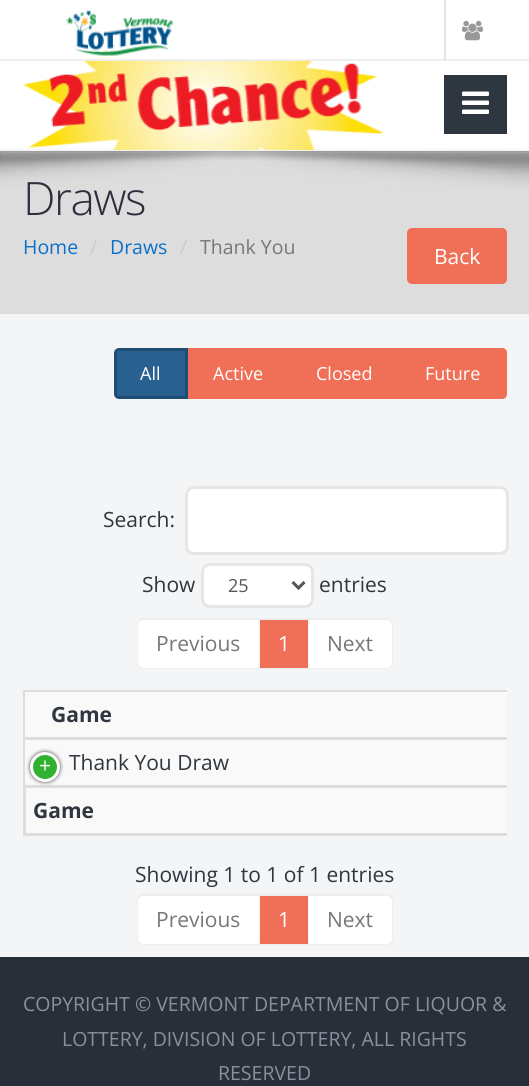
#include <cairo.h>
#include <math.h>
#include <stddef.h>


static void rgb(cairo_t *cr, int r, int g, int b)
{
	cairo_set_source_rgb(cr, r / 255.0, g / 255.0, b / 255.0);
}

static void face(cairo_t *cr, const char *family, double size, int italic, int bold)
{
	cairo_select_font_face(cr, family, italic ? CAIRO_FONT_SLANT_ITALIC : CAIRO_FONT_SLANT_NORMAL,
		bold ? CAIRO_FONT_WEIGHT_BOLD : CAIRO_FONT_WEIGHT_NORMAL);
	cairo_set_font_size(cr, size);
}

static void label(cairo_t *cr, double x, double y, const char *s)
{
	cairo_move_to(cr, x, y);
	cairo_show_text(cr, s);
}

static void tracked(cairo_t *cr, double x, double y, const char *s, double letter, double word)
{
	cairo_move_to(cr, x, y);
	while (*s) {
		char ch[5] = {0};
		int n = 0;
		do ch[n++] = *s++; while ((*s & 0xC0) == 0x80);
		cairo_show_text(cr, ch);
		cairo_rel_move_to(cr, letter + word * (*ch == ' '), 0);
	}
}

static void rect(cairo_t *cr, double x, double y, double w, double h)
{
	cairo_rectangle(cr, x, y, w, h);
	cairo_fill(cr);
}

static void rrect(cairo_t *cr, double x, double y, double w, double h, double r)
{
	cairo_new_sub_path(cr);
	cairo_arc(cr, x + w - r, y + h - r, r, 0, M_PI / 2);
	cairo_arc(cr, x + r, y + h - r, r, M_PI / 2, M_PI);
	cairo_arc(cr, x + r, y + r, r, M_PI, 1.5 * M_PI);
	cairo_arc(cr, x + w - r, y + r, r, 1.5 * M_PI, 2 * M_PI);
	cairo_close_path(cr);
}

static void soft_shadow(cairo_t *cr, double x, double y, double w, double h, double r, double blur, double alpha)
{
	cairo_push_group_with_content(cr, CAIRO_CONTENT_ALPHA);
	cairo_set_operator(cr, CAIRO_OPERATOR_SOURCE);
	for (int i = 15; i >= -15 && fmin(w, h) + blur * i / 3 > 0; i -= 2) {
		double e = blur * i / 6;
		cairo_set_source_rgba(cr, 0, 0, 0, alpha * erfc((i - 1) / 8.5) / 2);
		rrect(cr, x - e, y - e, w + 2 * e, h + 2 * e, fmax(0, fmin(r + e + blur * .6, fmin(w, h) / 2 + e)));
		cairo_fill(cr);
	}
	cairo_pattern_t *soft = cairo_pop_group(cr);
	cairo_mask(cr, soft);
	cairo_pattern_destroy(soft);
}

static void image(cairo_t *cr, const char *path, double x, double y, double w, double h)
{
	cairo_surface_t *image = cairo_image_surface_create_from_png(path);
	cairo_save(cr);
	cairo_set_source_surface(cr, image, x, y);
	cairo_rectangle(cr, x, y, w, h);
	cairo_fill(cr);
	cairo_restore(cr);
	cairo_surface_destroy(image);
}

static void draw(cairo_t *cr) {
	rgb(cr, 41, 47, 56);
	cairo_paint(cr);
	rgb(cr, 221, 221, 221);
	rect(cr, 0, 151, 529, 163);
	face(cr, "Open Sans Light", 46, 0, 0);
	rgb(cr, 45, 47, 60);
	tracked(cr, 23, 215, "Draws", -1.5, 0);
	image(cr, "image4.png", 0, 151, 529, 37);
	rgb(cr, 238, 238, 238);
	soft_shadow(cr, 0, 60, 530, 90, 0, 6, 1);
	rgb(cr, 255, 255, 255);
	rect(cr, 0, 0, 529, 59);
	rgb(cr, 238, 238, 238);
	rect(cr, 0, 59, 529, 2);
	image(cr, "image0.png", 66, 10, 108, 46);
	cairo_set_source_rgba(cr, 0, 0, 0, 0.1);
	rect(cr, 444, 0, 2, 60);
	image(cr, "image1.png", 462, 20, 21, 21);
	rgb(cr, 255, 255, 255);
	rect(cr, 0, 61, 529, 88);
	rgb(cr, 244, 245, 247);
	rect(cr, 0, 149, 529, 2);
	image(cr, "image2.png", 23, 61, 360, 89);
	rgb(cr, 46, 54, 63);
	rect(cr, 444, 75, 63, 59);
	image(cr, "image3.png", 462, 91, 27, 23);
	rgb(cr, 244, 245, 247);
	rect(cr, 0, 314, 529, 643);
	face(cr, "Open Sans", 19.5, 0, 0);
	rgb(cr, 10, 112, 201);
	label(cr, 23, 254, "Home");
	rgb(cr, 204, 204, 204);
	label(cr, 90, 254, "/");
	rgb(cr, 10, 112, 201);
	label(cr, 110, 254, "Draws");
	rgb(cr, 204, 204, 204);
	label(cr, 180, 254, "/");
	rgb(cr, 119, 119, 119);
	label(cr, 200, 254, "Thank You");
	rgb(cr, 240, 112, 87);
	rrect(cr, 407, 228, 100, 56, 5);
	cairo_fill(cr);
	face(cr, "Open Sans", 21, 0, 0);
	rgb(cr, 255, 255, 255);
	label(cr, 434, 264, "Back");
	rgb(cr, 40, 96, 144);
	cairo_new_path(cr);
	cairo_move_to(cr, 119, 349.5);
	cairo_line_to(cr, 186.5, 349.5);
	cairo_line_to(cr, 186.5, 397.5);
	cairo_line_to(cr, 119, 397.5);
	cairo_curve_to(cr, 117, 397.5, 115.5, 396, 115.5, 394);
	cairo_line_to(cr, 115.5, 353);
	cairo_curve_to(cr, 115.5, 351, 117, 349.5, 119, 349.5);
	cairo_close_path(cr);
	cairo_fill_preserve(cr);
	rgb(cr, 32, 77, 116);
	cairo_set_line_width(cr, 3);
	cairo_stroke(cr);
	face(cr, "Open Sans", 18, 0, 0);
	rgb(cr, 255, 255, 255);
	label(cr, 140, 380, "All");
	rgb(cr, 240, 112, 87);
	rect(cr, 188, 348, 210, 51);
	rgb(cr, 255, 255, 255);
	label(cr, 213, 380, "Active");
	label(cr, 316, 380, "Closed");
	rgb(cr, 240, 112, 87);
	cairo_new_path(cr);
	cairo_move_to(cr, 398, 348);
	cairo_line_to(cr, 502, 348);
	cairo_curve_to(cr, 505, 348, 507, 350, 507, 353);
	cairo_line_to(cr, 507, 394);
	cairo_curve_to(cr, 507, 397, 505, 399, 502, 399);
	cairo_line_to(cr, 398, 399);
	cairo_close_path(cr);
	cairo_fill(cr);
	rgb(cr, 255, 255, 255);
	label(cr, 425, 380, "Future");
	face(cr, "Open Sans", 21, 0, 0);
	rgb(cr, 46, 54, 63);
	label(cr, 103, 527, "Search:");
	rgb(cr, 255, 255, 255);
	rrect(cr, 186.5, 487.5, 321, 66, 7.5);
	cairo_fill_preserve(cr);
	rgb(cr, 230, 230, 230);
	cairo_stroke(cr);
	rgb(cr, 46, 54, 63);
	label(cr, 142, 592, "Show");
	rgb(cr, 255, 255, 255);
	rrect(cr, 202.5, 564.5, 110, 42, 7.5);
	cairo_fill_preserve(cr);
	rgb(cr, 230, 230, 230);
	cairo_stroke(cr);
	cairo_new_path(cr);
	cairo_move_to(cr, 292.5, 582);
	cairo_line_to(cr, 298.5, 588);
	cairo_line_to(cr, 304.5, 582);
	rgb(cr, 85, 85, 85);
	cairo_stroke(cr);
	face(cr, "Open Sans", 18, 0, 0);
	label(cr, 228, 592, "25");
	face(cr, "Open Sans", 21, 0, 0);
	rgb(cr, 46, 54, 63);
	label(cr, 319, 592, "entries");
	rrect(cr, 138, 619, 254, 49, 5);
	rgb(cr, 238, 238, 238);
	cairo_set_line_width(cr, 2);
	cairo_stroke(cr);
	rgb(cr, 255, 255, 255);
	cairo_new_path(cr);
	cairo_move_to(cr, 144, 620);
	cairo_line_to(cr, 258, 620);
	cairo_line_to(cr, 258, 668);
	cairo_line_to(cr, 144, 668);
	cairo_curve_to(cr, 140.5, 668, 138, 665.5, 138, 662);
	cairo_line_to(cr, 138, 626);
	cairo_curve_to(cr, 138, 622.5, 140.5, 620, 144, 620);
	cairo_close_path(cr);
	cairo_fill(cr);
	rgb(cr, 119, 119, 119);
	label(cr, 156, 651, "Previous");
	rgb(cr, 240, 112, 87);
	rect(cr, 260, 620, 48, 48);
	rgb(cr, 255, 255, 255);
	label(cr, 278, 651, "1");
	cairo_new_path(cr);
	cairo_move_to(cr, 309, 620);
	cairo_line_to(cr, 386, 620);
	cairo_curve_to(cr, 389.5, 620, 392, 622.5, 392, 626);
	cairo_line_to(cr, 392, 662);
	cairo_curve_to(cr, 392, 665.5, 389.5, 668, 386, 668);
	cairo_line_to(cr, 309, 668);
	cairo_close_path(cr);
	cairo_fill(cr);
	rgb(cr, 119, 119, 119);
	label(cr, 327, 651, "Next");
	rgb(cr, 249, 249, 249);
	rect(cr, 25, 692, 482, 45);
	rgb(cr, 221, 221, 221);
	rect(cr, 23, 690, 484, 2);
	rect(cr, 23, 690, 2, 50);
	rect(cr, 24, 737, 483, 3);
	face(cr, "Open Sans", 21, 0, 1);
	rgb(cr, 46, 54, 63);
	label(cr, 51, 722, "Game");
	rgb(cr, 249, 249, 249);
	rect(cr, 25, 740, 482, 45);
	rgb(cr, 221, 221, 221);
	rect(cr, 23, 785, 484, 1);
	rect(cr, 23, 740, 2, 46);
	rgb(cr, 249, 249, 249);
	rect(cr, 26, 788, 481, 45);
	rgb(cr, 221, 221, 221);
	rect(cr, 23, 835, 484, 1);
	rect(cr, 23, 786, 2, 50);
	rect(cr, 24, 786, 483, 2);
	rect(cr, 24, 833, 483, 2);
	rect(cr, 25, 786, 1, 48);
	rgb(cr, 68, 68, 68);
	soft_shadow(cr, 30, 752, 30, 30, 15, 2, 1);
	rgb(cr, 49, 177, 49);
	cairo_arc(cr, 45, 767, 13.5, 0, 2 * M_PI);
	cairo_fill_preserve(cr);
	rgb(cr, 255, 255, 255);
	cairo_set_line_width(cr, 3);
	cairo_stroke(cr);
	face(cr, "Open Sans", 21, 0, 0);
	label(cr, 39, 773, "+");
	rgb(cr, 46, 54, 63);
	label(cr, 69, 770, "Thank You Draw");
	face(cr, "Open Sans", 21, 0, 1);
	label(cr, 33, 818, "Game");
	face(cr, "Open Sans", 21, 0, 0);
	label(cr, 135, 882, "Showing 1 to 1 of 1 entries");
	rrect(cr, 138, 895, 254, 49, 5);
	rgb(cr, 238, 238, 238);
	cairo_set_line_width(cr, 2);
	cairo_stroke(cr);
	rgb(cr, 255, 255, 255);
	cairo_new_path(cr);
	cairo_move_to(cr, 144, 896);
	cairo_line_to(cr, 258, 896);
	cairo_line_to(cr, 258, 944);
	cairo_line_to(cr, 144, 944);
	cairo_curve_to(cr, 140.5, 944, 138, 941.5, 138, 938);
	cairo_line_to(cr, 138, 902);
	cairo_curve_to(cr, 138, 898.5, 140.5, 896, 144, 896);
	cairo_close_path(cr);
	cairo_fill(cr);
	rgb(cr, 119, 119, 119);
	label(cr, 156, 927, "Previous");
	rgb(cr, 240, 112, 87);
	rect(cr, 260, 896, 48, 48);
	rgb(cr, 255, 255, 255);
	label(cr, 278, 927, "1");
	cairo_new_path(cr);
	cairo_move_to(cr, 309, 896);
	cairo_line_to(cr, 386, 896);
	cairo_curve_to(cr, 389.5, 896, 392, 898.5, 392, 902);
	cairo_line_to(cr, 392, 938);
	cairo_curve_to(cr, 392, 941.5, 389.5, 944, 386, 944);
	cairo_line_to(cr, 309, 944);
	cairo_close_path(cr);
	cairo_fill(cr);
	rgb(cr, 119, 119, 119);
	label(cr, 327, 927, "Next");
	face(cr, "Open Sans", 19.5, 0, 0);
	rgb(cr, 135, 145, 159);
	label(cr, 23, 1011, "COPYRIGHT © VERMONT DEPARTMENT OF LIQUOR &");
	label(cr, 62, 1046, "LOTTERY, DIVISION OF LOTTERY, ALL RIGHTS");
	label(cr, 218, 1080, "RESERVED");
}

int main(void) {
	cairo_surface_t *surface = cairo_image_surface_create(CAIRO_FORMAT_RGB24, 529, 1086);
	cairo_t *cr = cairo_create(surface);
	cairo_font_options_t *options = cairo_font_options_create();
	cairo_font_options_set_hint_metrics(options, CAIRO_HINT_METRICS_OFF);
	cairo_font_options_set_hint_style(options, CAIRO_HINT_STYLE_NONE);
	cairo_set_font_options(cr, options);
	cairo_set_miter_limit(cr, 4);
	draw(cr);
	cairo_surface_write_to_png(surface, "render.png");
	cairo_font_options_destroy(options);
	cairo_destroy(cr);
	cairo_surface_destroy(surface);
	return 0;
}
